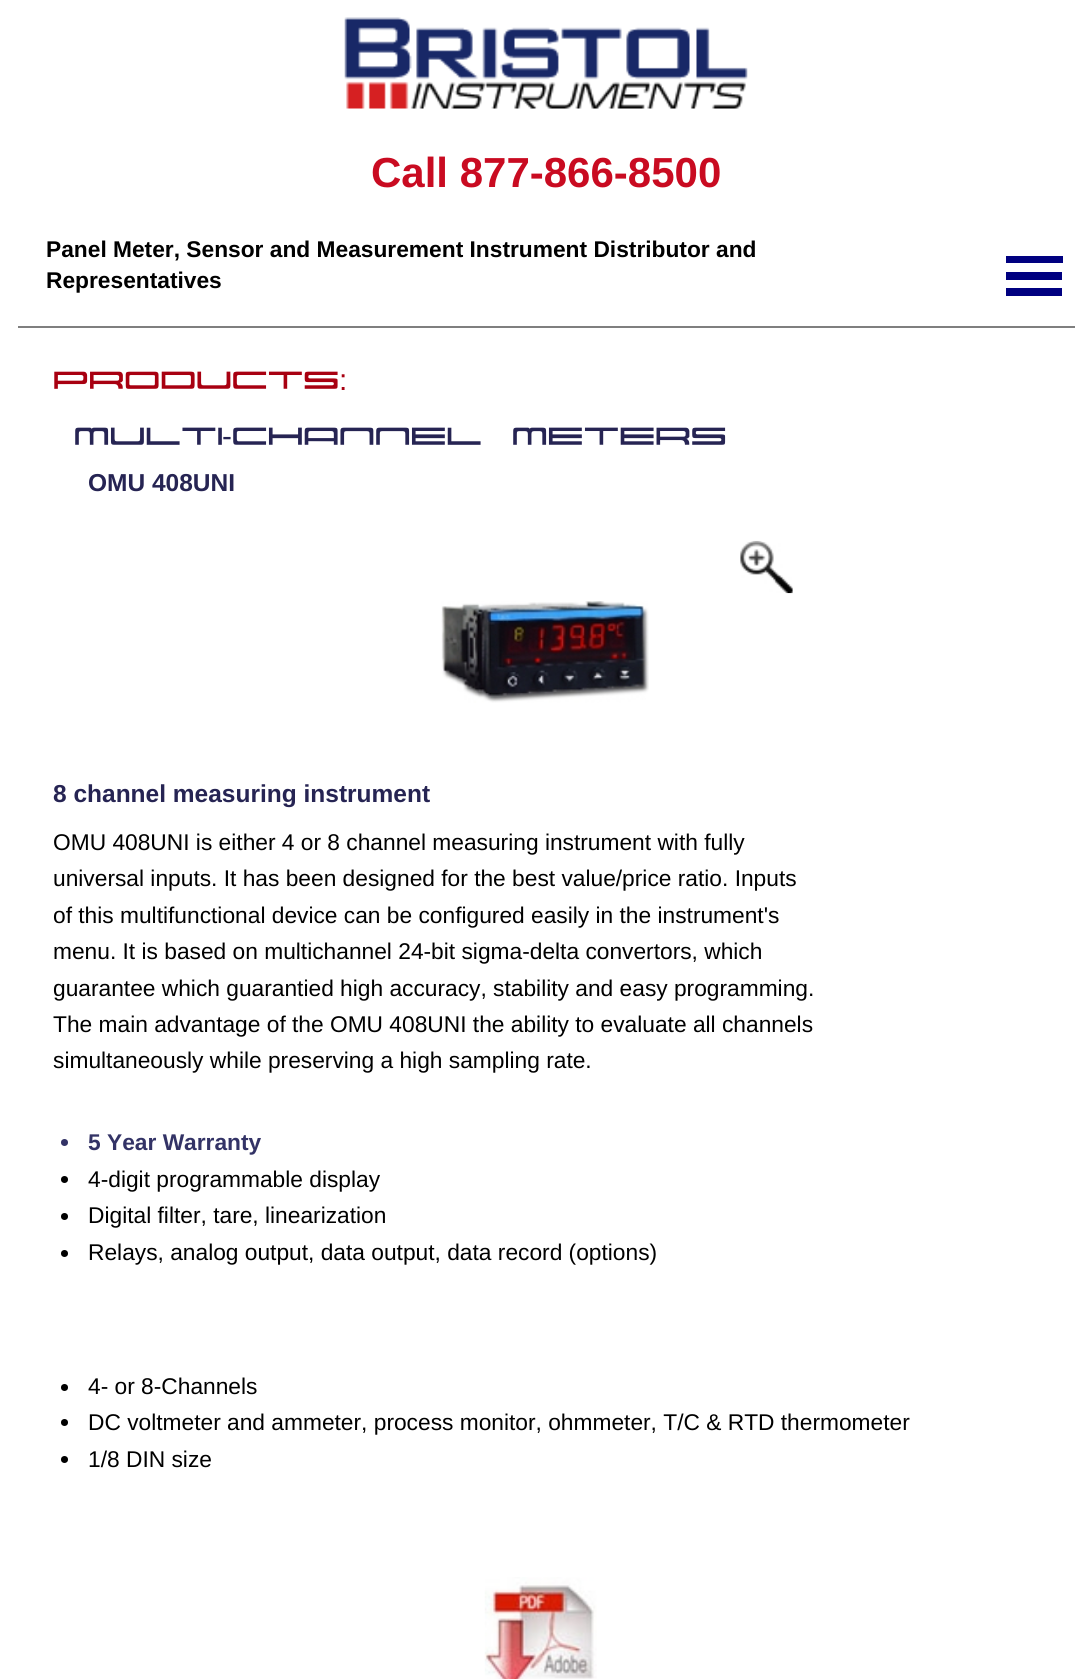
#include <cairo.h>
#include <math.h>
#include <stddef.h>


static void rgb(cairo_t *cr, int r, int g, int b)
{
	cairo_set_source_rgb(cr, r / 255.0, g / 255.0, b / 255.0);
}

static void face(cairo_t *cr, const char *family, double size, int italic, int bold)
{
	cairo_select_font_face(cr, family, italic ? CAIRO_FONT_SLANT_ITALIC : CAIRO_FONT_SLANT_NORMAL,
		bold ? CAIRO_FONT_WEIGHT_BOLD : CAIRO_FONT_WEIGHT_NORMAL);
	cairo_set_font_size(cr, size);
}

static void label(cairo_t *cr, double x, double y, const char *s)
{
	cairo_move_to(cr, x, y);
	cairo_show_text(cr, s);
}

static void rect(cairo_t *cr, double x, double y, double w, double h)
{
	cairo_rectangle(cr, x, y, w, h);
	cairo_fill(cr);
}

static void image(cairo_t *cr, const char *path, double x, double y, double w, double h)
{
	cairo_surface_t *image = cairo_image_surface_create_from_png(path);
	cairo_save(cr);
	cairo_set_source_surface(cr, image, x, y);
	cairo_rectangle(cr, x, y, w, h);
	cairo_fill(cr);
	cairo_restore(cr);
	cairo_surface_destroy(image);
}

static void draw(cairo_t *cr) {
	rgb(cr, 255, 255, 255);
	cairo_paint(cr);
	image(cr, "image0.png", 344, 17, 404, 92);
	face(cr, "Liberation Sans", 42, 0, 1);
	rgb(cr, 201, 11, 33);
	label(cr, 371, 187, "Call 877-866-8500");
	rgb(cr, 127, 127, 127);
	rect(cr, 18, 326, 1057, 2);
	face(cr, "Liberation Sans", 22.75, 0, 1);
	rgb(cr, 0, 0, 0);
	label(cr, 46, 257, "Panel Meter, Sensor and Measurement Instrument Distributor and");
	label(cr, 46, 288, "Representatives");
	rgb(cr, 0, 0, 128);
	rect(cr, 1006, 256, 57, 7);
	rect(cr, 1006, 272, 56, 8);
	rect(cr, 1006, 288, 56, 8);
	face(cr, "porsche", 29.75, 0, 0);
	rgb(cr, 168, 0, 17);
	label(cr, 53, 390, "PRODUCTS");
	face(cr, "Liberation Sans", 29.75, 0, 0);
	label(cr, 339, 390, ":");
	face(cr, "porsche", 29.75, 0, 0);
	rgb(cr, 38, 36, 83);
	label(cr, 74, 446, "MULTI");
	face(cr, "Liberation Sans", 29.75, 0, 0);
	label(cr, 222, 446, "-");
	face(cr, "porsche", 29.75, 0, 0);
	label(cr, 232, 446, "CHANNEL METERS");
	face(cr, "Liberation Sans", 24.5, 0, 1);
	label(cr, 88, 491, "OMU 408UNI");
	image(cr, "image1.png", 740, 540, 53, 54);
	image(cr, "image2.png", 441, 601, 208, 102);
	label(cr, 53, 802, "8 channel measuring instrument");
	face(cr, "Liberation Sans", 22.75, 0, 0);
	rgb(cr, 0, 0, 0);
	label(cr, 53, 850, "OMU 408UNI is either 4 or 8 channel measuring instrument with fully");
	label(cr, 53, 886, "universal inputs. It has been designed for the best value/price ratio. Inputs");
	label(cr, 53, 923, "of this multifunctional device can be configured easily in the instrument's");
	label(cr, 53, 959, "menu. It is based on multichannel 24-bit sigma-delta convertors, which");
	label(cr, 53, 996, "guarantee which guarantied high accuracy, stability and easy programming.");
	label(cr, 53, 1032, "The main advantage of the OMU 408UNI the ability to evaluate all channels");
	label(cr, 53, 1068, "simultaneously while preserving a high sampling rate.");
	rgb(cr, 51, 51, 102);
	cairo_new_path(cr);
	cairo_arc(cr, 64.5, 1142.5, 3.5, 0, 2 * M_PI);
	cairo_fill(cr);
	face(cr, "Liberation Sans", 22.75, 0, 1);
	label(cr, 88, 1150, "5 Year Warranty");
	rgb(cr, 0, 0, 0);
	cairo_new_path(cr);
	cairo_arc(cr, 64.5, 1179.5, 3.5, 0, 2 * M_PI);
	cairo_fill(cr);
	face(cr, "Liberation Sans", 22.75, 0, 0);
	label(cr, 88, 1187, "4-digit programmable display");
	cairo_new_path(cr);
	cairo_arc(cr, 64.5, 1216.5, 3.5, 0, 2 * M_PI);
	cairo_fill(cr);
	label(cr, 88, 1223, "Digital filter, tare, linearization");
	cairo_new_path(cr);
	cairo_arc(cr, 64.5, 1253.5, 3.5, 0, 2 * M_PI);
	cairo_fill(cr);
	label(cr, 88, 1260, "Relays, analog output, data output, data record (options)");
	cairo_new_path(cr);
	cairo_arc(cr, 64.5, 1387.5, 3.5, 0, 2 * M_PI);
	cairo_fill(cr);
	label(cr, 88, 1394, "4- or 8-Channels");
	cairo_new_path(cr);
	cairo_arc(cr, 64.5, 1422.5, 3.5, 0, 2 * M_PI);
	cairo_fill(cr);
	label(cr, 88, 1430, "DC voltmeter and ammeter, process monitor, ohmmeter, T/C & RTD thermometer");
	cairo_new_path(cr);
	cairo_arc(cr, 64.5, 1459.5, 3.5, 0, 2 * M_PI);
	cairo_fill(cr);
	label(cr, 88, 1467, "1/8 DIN size");
	image(cr, "image3.png", 484, 1577, 113, 102);
}

int main(void) {
	cairo_surface_t *surface = cairo_image_surface_create(CAIRO_FORMAT_RGB24, 1091, 1679);
	cairo_t *cr = cairo_create(surface);
	cairo_font_options_t *options = cairo_font_options_create();
	cairo_font_options_set_hint_metrics(options, CAIRO_HINT_METRICS_OFF);
	cairo_font_options_set_hint_style(options, CAIRO_HINT_STYLE_NONE);
	cairo_set_font_options(cr, options);
	cairo_set_miter_limit(cr, 4);
	draw(cr);
	cairo_surface_write_to_png(surface, "render.png");
	cairo_font_options_destroy(options);
	cairo_destroy(cr);
	cairo_surface_destroy(surface);
	return 0;
}
